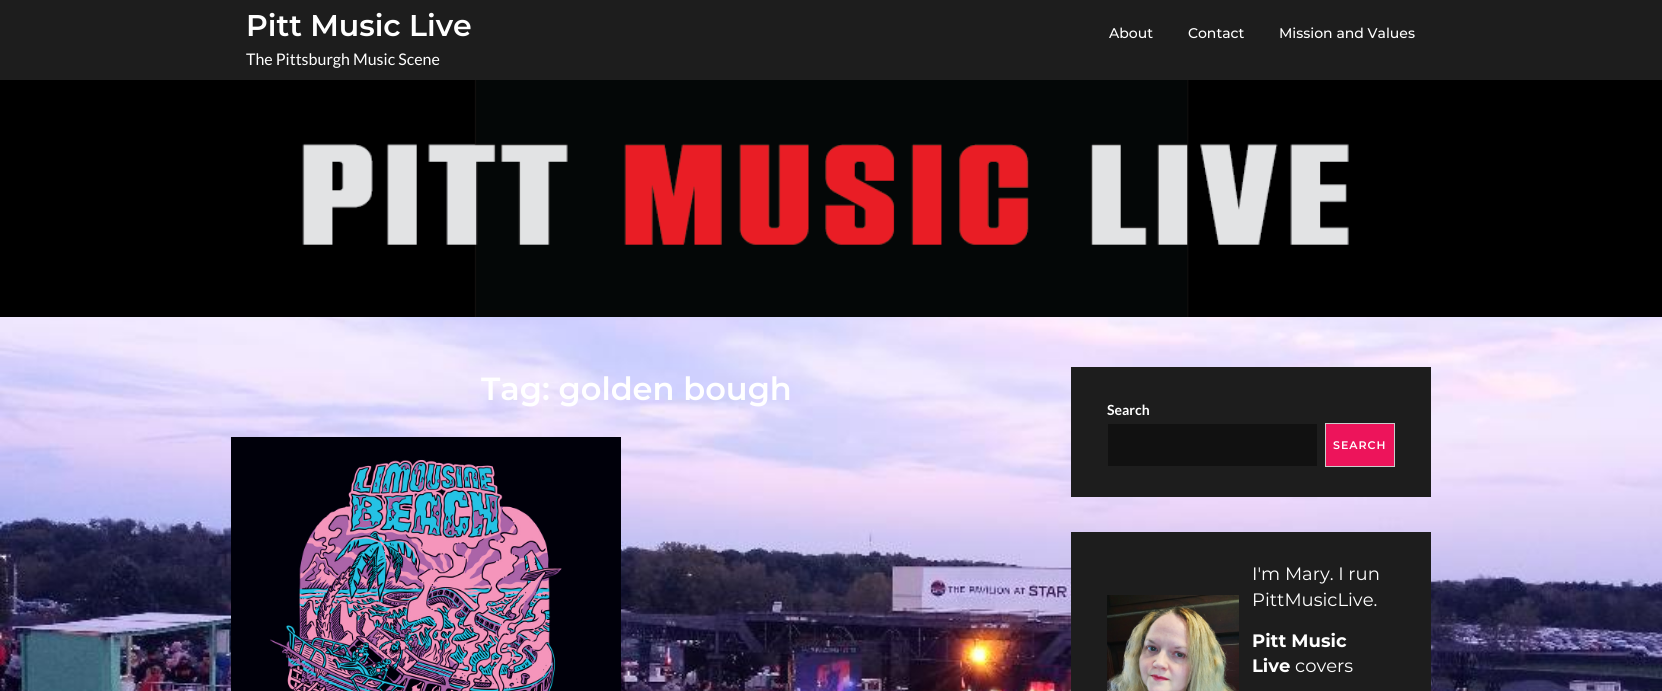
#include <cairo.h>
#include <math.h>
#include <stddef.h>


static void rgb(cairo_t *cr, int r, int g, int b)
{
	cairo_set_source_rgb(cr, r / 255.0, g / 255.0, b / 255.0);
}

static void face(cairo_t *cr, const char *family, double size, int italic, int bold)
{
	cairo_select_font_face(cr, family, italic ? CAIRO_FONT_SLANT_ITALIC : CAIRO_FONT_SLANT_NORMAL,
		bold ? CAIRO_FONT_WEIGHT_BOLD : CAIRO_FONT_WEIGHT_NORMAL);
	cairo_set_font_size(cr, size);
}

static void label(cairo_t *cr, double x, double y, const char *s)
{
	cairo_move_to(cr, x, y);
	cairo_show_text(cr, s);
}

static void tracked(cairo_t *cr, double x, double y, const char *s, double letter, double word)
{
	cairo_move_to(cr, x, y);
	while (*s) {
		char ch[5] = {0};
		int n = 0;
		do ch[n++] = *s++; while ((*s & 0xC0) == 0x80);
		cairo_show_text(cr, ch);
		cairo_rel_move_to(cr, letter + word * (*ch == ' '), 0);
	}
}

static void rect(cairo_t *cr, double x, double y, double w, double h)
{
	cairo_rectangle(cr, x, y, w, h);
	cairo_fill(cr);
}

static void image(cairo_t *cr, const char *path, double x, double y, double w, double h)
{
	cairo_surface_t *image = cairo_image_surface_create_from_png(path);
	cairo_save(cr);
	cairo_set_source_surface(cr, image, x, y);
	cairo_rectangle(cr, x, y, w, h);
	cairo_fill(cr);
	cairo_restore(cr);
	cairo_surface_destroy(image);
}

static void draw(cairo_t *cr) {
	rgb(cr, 255, 255, 255);
	cairo_paint(cr);
	image(cr, "image0.png", 0, 317, 1662, 374);
	rgb(cr, 29, 29, 29);
	rect(cr, 0, 0, 1662, 80);
	face(cr, "Montserrat SemiBold", 30, 0, 0);
	rgb(cr, 255, 255, 255);
	label(cr, 246, 36, "Pitt Music Live");
	face(cr, "Lato", 16, 0, 0);
	label(cr, 246, 65, "The Pittsburgh Music Scene");
	face(cr, "Montserrat Medium", 14, 0, 0);
	label(cr, 1109, 38, "About");
	label(cr, 1188, 38, "Contact");
	label(cr, 1279, 38, "Mission and Values");
	image(cr, "image1.png", 0, 80, 1662, 237);
	face(cr, "Montserrat SemiBold", 32, 0, 0);
	label(cr, 481, 400, "Tag: golden bough");
	image(cr, "image2.png", 231, 437, 390, 254);
	rgb(cr, 29, 29, 29);
	rect(cr, 1071, 367, 360, 130);
	face(cr, "Lato", 14, 0, 1);
	rgb(cr, 255, 255, 255);
	label(cr, 1107, 415, "Search");
	rgb(cr, 17, 17, 17);
	rect(cr, 1108, 424, 209, 42);
	rgb(cr, 237, 20, 91);
	cairo_rectangle(cr, 1325.5, 423.5, 69, 43);
	cairo_fill_preserve(cr);
	rgb(cr, 204, 204, 204);
	cairo_set_line_width(cr, 1);
	cairo_stroke(cr);
	face(cr, "Montserrat SemiBold", 11, 0, 0);
	rgb(cr, 255, 255, 255);
	tracked(cr, 1333, 449, "SEARCH", 1, 0);
	rgb(cr, 29, 29, 29);
	rect(cr, 1071, 532, 360, 159);
	image(cr, "image3.png", 1107, 595, 132, 96);
	face(cr, "Montserrat", 18, 0, 0);
	rgb(cr, 255, 255, 255);
	label(cr, 1252, 580, "I'm Mary. I run");
	label(cr, 1252, 606, "PittMusicLive.");
	face(cr, "Montserrat", 18, 0, 1);
	label(cr, 1252, 647, "Pitt Music");
	label(cr, 1252, 672, "Live");
	face(cr, "Montserrat", 18, 0, 0);
	label(cr, 1295, 672, "covers");
}

int main(void) {
	cairo_surface_t *surface = cairo_image_surface_create(CAIRO_FORMAT_RGB24, 1662, 691);
	cairo_t *cr = cairo_create(surface);
	cairo_font_options_t *options = cairo_font_options_create();
	cairo_font_options_set_hint_metrics(options, CAIRO_HINT_METRICS_OFF);
	cairo_font_options_set_hint_style(options, CAIRO_HINT_STYLE_NONE);
	cairo_set_font_options(cr, options);
	cairo_set_miter_limit(cr, 4);
	draw(cr);
	cairo_surface_write_to_png(surface, "render.png");
	cairo_font_options_destroy(options);
	cairo_destroy(cr);
	cairo_surface_destroy(surface);
	return 0;
}
